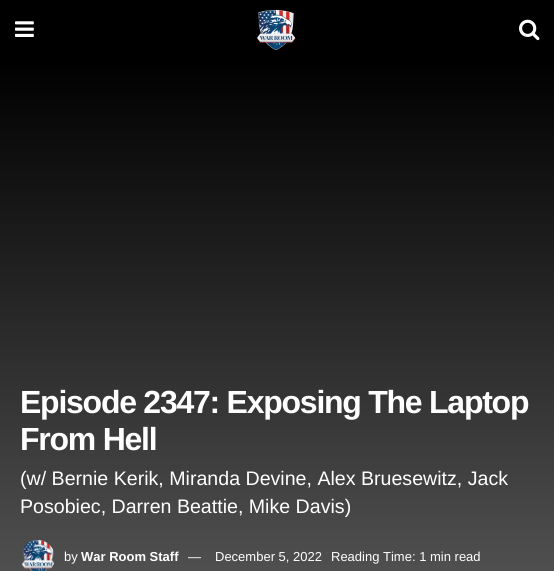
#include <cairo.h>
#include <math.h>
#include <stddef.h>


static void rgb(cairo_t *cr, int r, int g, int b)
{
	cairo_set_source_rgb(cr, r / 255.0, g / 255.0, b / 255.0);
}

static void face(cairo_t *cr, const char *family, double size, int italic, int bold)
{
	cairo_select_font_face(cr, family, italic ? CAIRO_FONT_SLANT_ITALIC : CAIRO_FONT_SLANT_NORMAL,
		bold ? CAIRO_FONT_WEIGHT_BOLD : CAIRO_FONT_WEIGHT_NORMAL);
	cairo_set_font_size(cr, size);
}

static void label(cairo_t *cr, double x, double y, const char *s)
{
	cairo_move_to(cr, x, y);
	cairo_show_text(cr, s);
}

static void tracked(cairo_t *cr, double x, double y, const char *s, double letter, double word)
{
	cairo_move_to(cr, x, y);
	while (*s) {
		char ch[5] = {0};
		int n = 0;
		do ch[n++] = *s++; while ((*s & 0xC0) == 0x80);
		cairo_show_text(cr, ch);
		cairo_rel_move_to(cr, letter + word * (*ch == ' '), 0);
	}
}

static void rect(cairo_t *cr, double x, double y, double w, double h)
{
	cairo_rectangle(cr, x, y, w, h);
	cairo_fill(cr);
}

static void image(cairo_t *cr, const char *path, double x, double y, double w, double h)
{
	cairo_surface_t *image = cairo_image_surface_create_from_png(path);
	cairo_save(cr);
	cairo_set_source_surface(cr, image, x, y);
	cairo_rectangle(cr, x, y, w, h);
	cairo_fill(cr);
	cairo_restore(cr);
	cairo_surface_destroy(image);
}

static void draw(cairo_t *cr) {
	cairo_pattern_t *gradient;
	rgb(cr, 255, 255, 255);
	cairo_paint(cr);
	rgb(cr, 0, 0, 0);
	rect(cr, 0, 0, 554, 60);
	image(cr, "image0.png", 15, 21, 19, 16);
	image(cr, "image1.png", 257, 10, 39, 40);
	image(cr, "image2.png", 519, 19, 21, 22);
	gradient = cairo_pattern_create_linear(277, 60, 277, 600);
	cairo_pattern_add_color_stop_rgba(gradient, 0, 0, 0, 0, 1);
	cairo_pattern_add_color_stop_rgba(gradient, 1, 0.329, 0.329, 0.329, 1);
	cairo_set_source(cr, gradient);
	cairo_pattern_destroy(gradient);
	rect(cr, 0, 60, 554, 511);
	face(cr, "Liberation Sans", 32, 0, 1);
	rgb(cr, 255, 255, 255);
	tracked(cr, 20, 413, "Episode 2347: Exposing The Laptop", -1.25, 0);
	tracked(cr, 20, 450, "From Hell", -1.25, 0);
	face(cr, "Liberation Sans", 19.6, 0, 0);
	label(cr, 20, 485, "(w/ Bernie Kerik, Miranda Devine, Alex Bruesewitz, Jack");
	label(cr, 20, 513, "Posobiec, Darren Beattie, Mike Davis)");
	image(cr, "image3.png", 21, 540, 33, 31);
	face(cr, "Liberation Sans", 13, 0, 0);
	label(cr, 64, 561, "by");
	face(cr, "Liberation Sans", 13, 0, 1);
	label(cr, 81, 561, "War Room Staff");
	face(cr, "Liberation Sans", 13, 0, 0);
	label(cr, 188, 561, "—");
	label(cr, 215, 561, "December 5, 2022");
	label(cr, 331, 561, "Reading Time: 1 min read");
}

int main(void) {
	cairo_surface_t *surface = cairo_image_surface_create(CAIRO_FORMAT_RGB24, 554, 571);
	cairo_t *cr = cairo_create(surface);
	cairo_font_options_t *options = cairo_font_options_create();
	cairo_font_options_set_hint_metrics(options, CAIRO_HINT_METRICS_OFF);
	cairo_font_options_set_hint_style(options, CAIRO_HINT_STYLE_NONE);
	cairo_set_font_options(cr, options);
	cairo_set_miter_limit(cr, 4);
	draw(cr);
	cairo_surface_write_to_png(surface, "render.png");
	cairo_font_options_destroy(options);
	cairo_destroy(cr);
	cairo_surface_destroy(surface);
	return 0;
}
